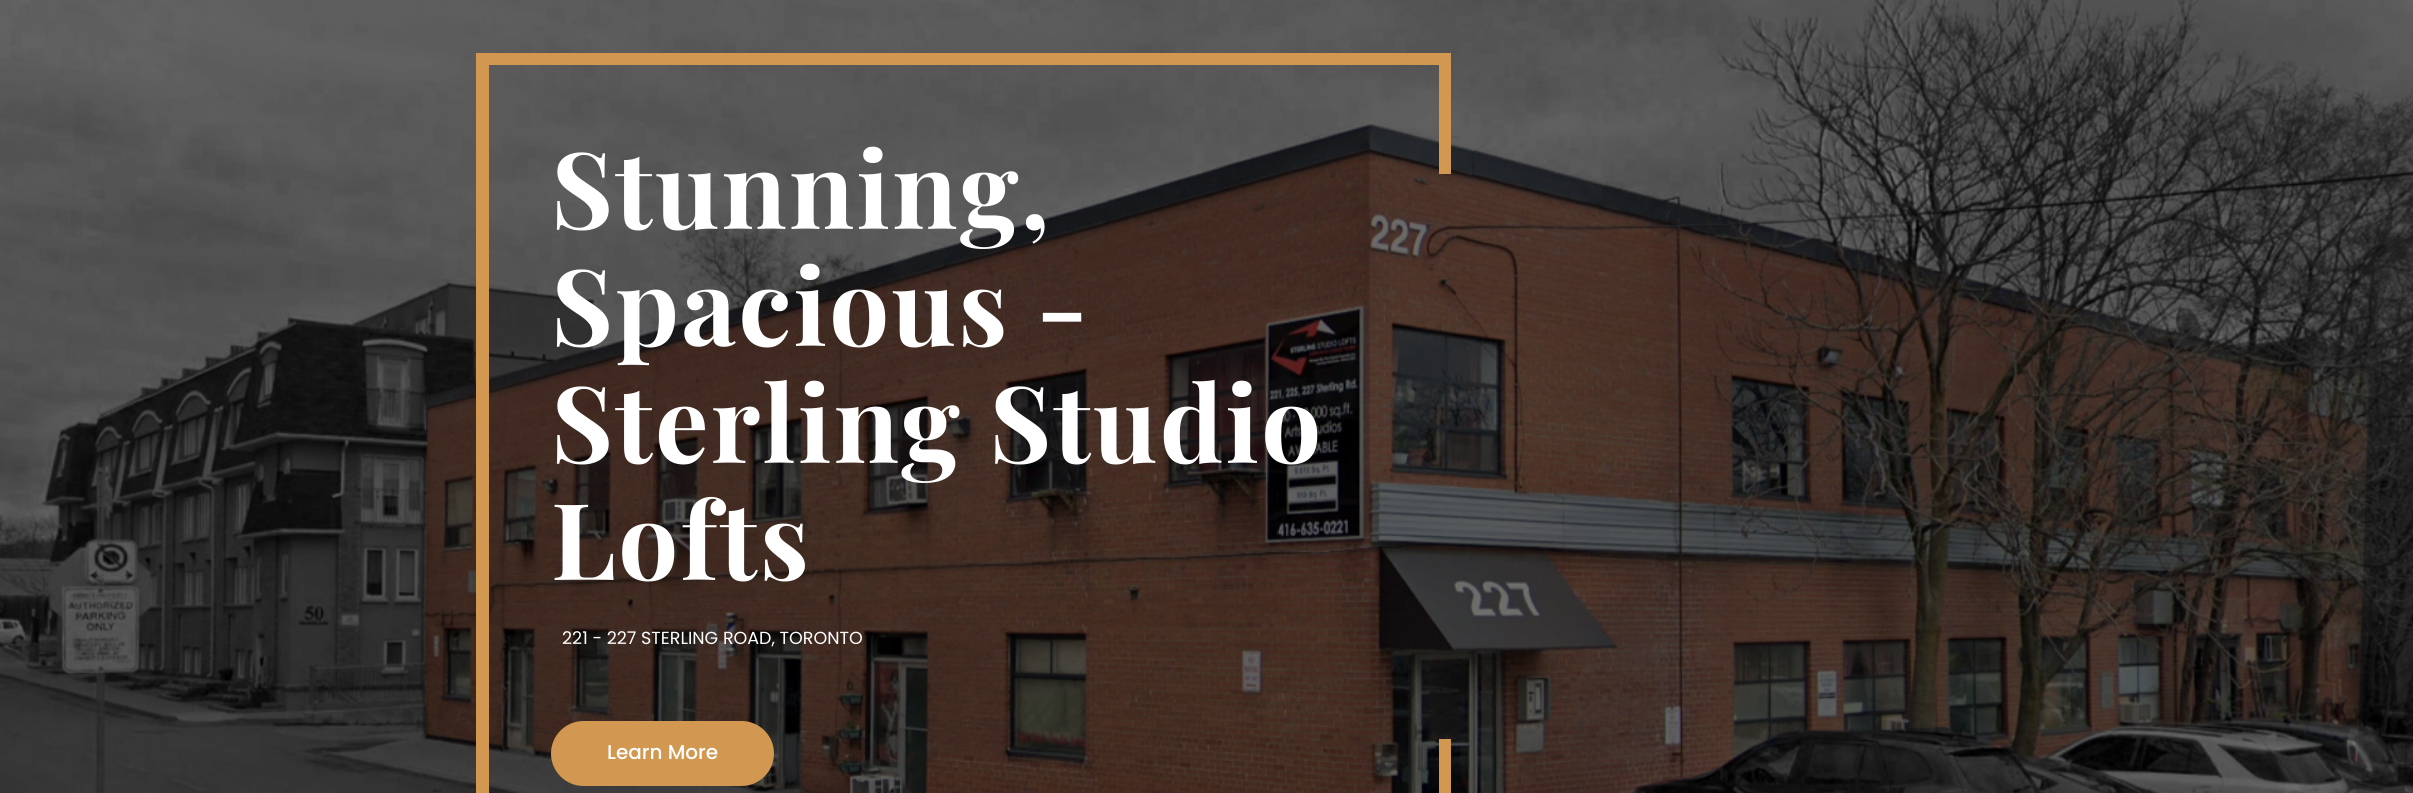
#include <cairo.h>
#include <math.h>
#include <stddef.h>


static void rgb(cairo_t *cr, int r, int g, int b)
{
	cairo_set_source_rgb(cr, r / 255.0, g / 255.0, b / 255.0);
}

static void face(cairo_t *cr, const char *family, double size, int italic, int bold)
{
	cairo_select_font_face(cr, family, italic ? CAIRO_FONT_SLANT_ITALIC : CAIRO_FONT_SLANT_NORMAL,
		bold ? CAIRO_FONT_WEIGHT_BOLD : CAIRO_FONT_WEIGHT_NORMAL);
	cairo_set_font_size(cr, size);
}

static void label(cairo_t *cr, double x, double y, const char *s)
{
	cairo_move_to(cr, x, y);
	cairo_show_text(cr, s);
}

static void tracked(cairo_t *cr, double x, double y, const char *s, double letter, double word)
{
	cairo_move_to(cr, x, y);
	while (*s) {
		char ch[5] = {0};
		int n = 0;
		do ch[n++] = *s++; while ((*s & 0xC0) == 0x80);
		cairo_show_text(cr, ch);
		cairo_rel_move_to(cr, letter + word * (*ch == ' '), 0);
	}
}

static void rect(cairo_t *cr, double x, double y, double w, double h)
{
	cairo_rectangle(cr, x, y, w, h);
	cairo_fill(cr);
}

static void rrect(cairo_t *cr, double x, double y, double w, double h, double r)
{
	cairo_new_sub_path(cr);
	cairo_arc(cr, x + w - r, y + h - r, r, 0, M_PI / 2);
	cairo_arc(cr, x + r, y + h - r, r, M_PI / 2, M_PI);
	cairo_arc(cr, x + r, y + r, r, M_PI, 1.5 * M_PI);
	cairo_arc(cr, x + w - r, y + r, r, 1.5 * M_PI, 2 * M_PI);
	cairo_close_path(cr);
}

static void image(cairo_t *cr, const char *path, double x, double y, double w, double h)
{
	cairo_surface_t *image = cairo_image_surface_create_from_png(path);
	cairo_save(cr);
	cairo_set_source_surface(cr, image, x, y);
	cairo_rectangle(cr, x, y, w, h);
	cairo_fill(cr);
	cairo_restore(cr);
	cairo_surface_destroy(image);
}

static void draw(cairo_t *cr) {
	rgb(cr, 255, 255, 255);
	cairo_paint(cr);
	image(cr, "image0.png", 0, 0, 2413, 793);
	rgb(cr, 210, 151, 81);
	rect(cr, 489, 53, 950, 12);
	rect(cr, 476, 53, 13, 740);
	rect(cr, 1439, 53, 12, 121);
	face(cr, "Playfair Display", 106.25, 0, 1);
	rgb(cr, 255, 255, 255);
	tracked(cr, 551, 229, "Stunning,", 2.25, 0);
	tracked(cr, 551, 346, "Spacious -", 2.25, 0);
	tracked(cr, 551, 463, "Sterling Studio", 2.25, 0);
	tracked(cr, 551, 580, "Lofts", 2.25, 0);
	face(cr, "Poppins", 17.5, 0, 0);
	label(cr, 562, 644, "221 - 227 STERLING ROAD, TORONTO");
	rgb(cr, 210, 151, 81);
	rrect(cr, 551, 721, 223, 65, 32.5);
	cairo_fill(cr);
	face(cr, "Poppins Medium", 20, 0, 0);
	rgb(cr, 255, 255, 255);
	label(cr, 607, 759, "Learn More");
	rgb(cr, 210, 151, 81);
	rect(cr, 1439, 739, 12, 54);
}

int main(void) {
	cairo_surface_t *surface = cairo_image_surface_create(CAIRO_FORMAT_RGB24, 2413, 793);
	cairo_t *cr = cairo_create(surface);
	cairo_font_options_t *options = cairo_font_options_create();
	cairo_font_options_set_hint_metrics(options, CAIRO_HINT_METRICS_OFF);
	cairo_font_options_set_hint_style(options, CAIRO_HINT_STYLE_NONE);
	cairo_set_font_options(cr, options);
	cairo_set_miter_limit(cr, 4);
	draw(cr);
	cairo_surface_write_to_png(surface, "render.png");
	cairo_font_options_destroy(options);
	cairo_destroy(cr);
	cairo_surface_destroy(surface);
	return 0;
}
